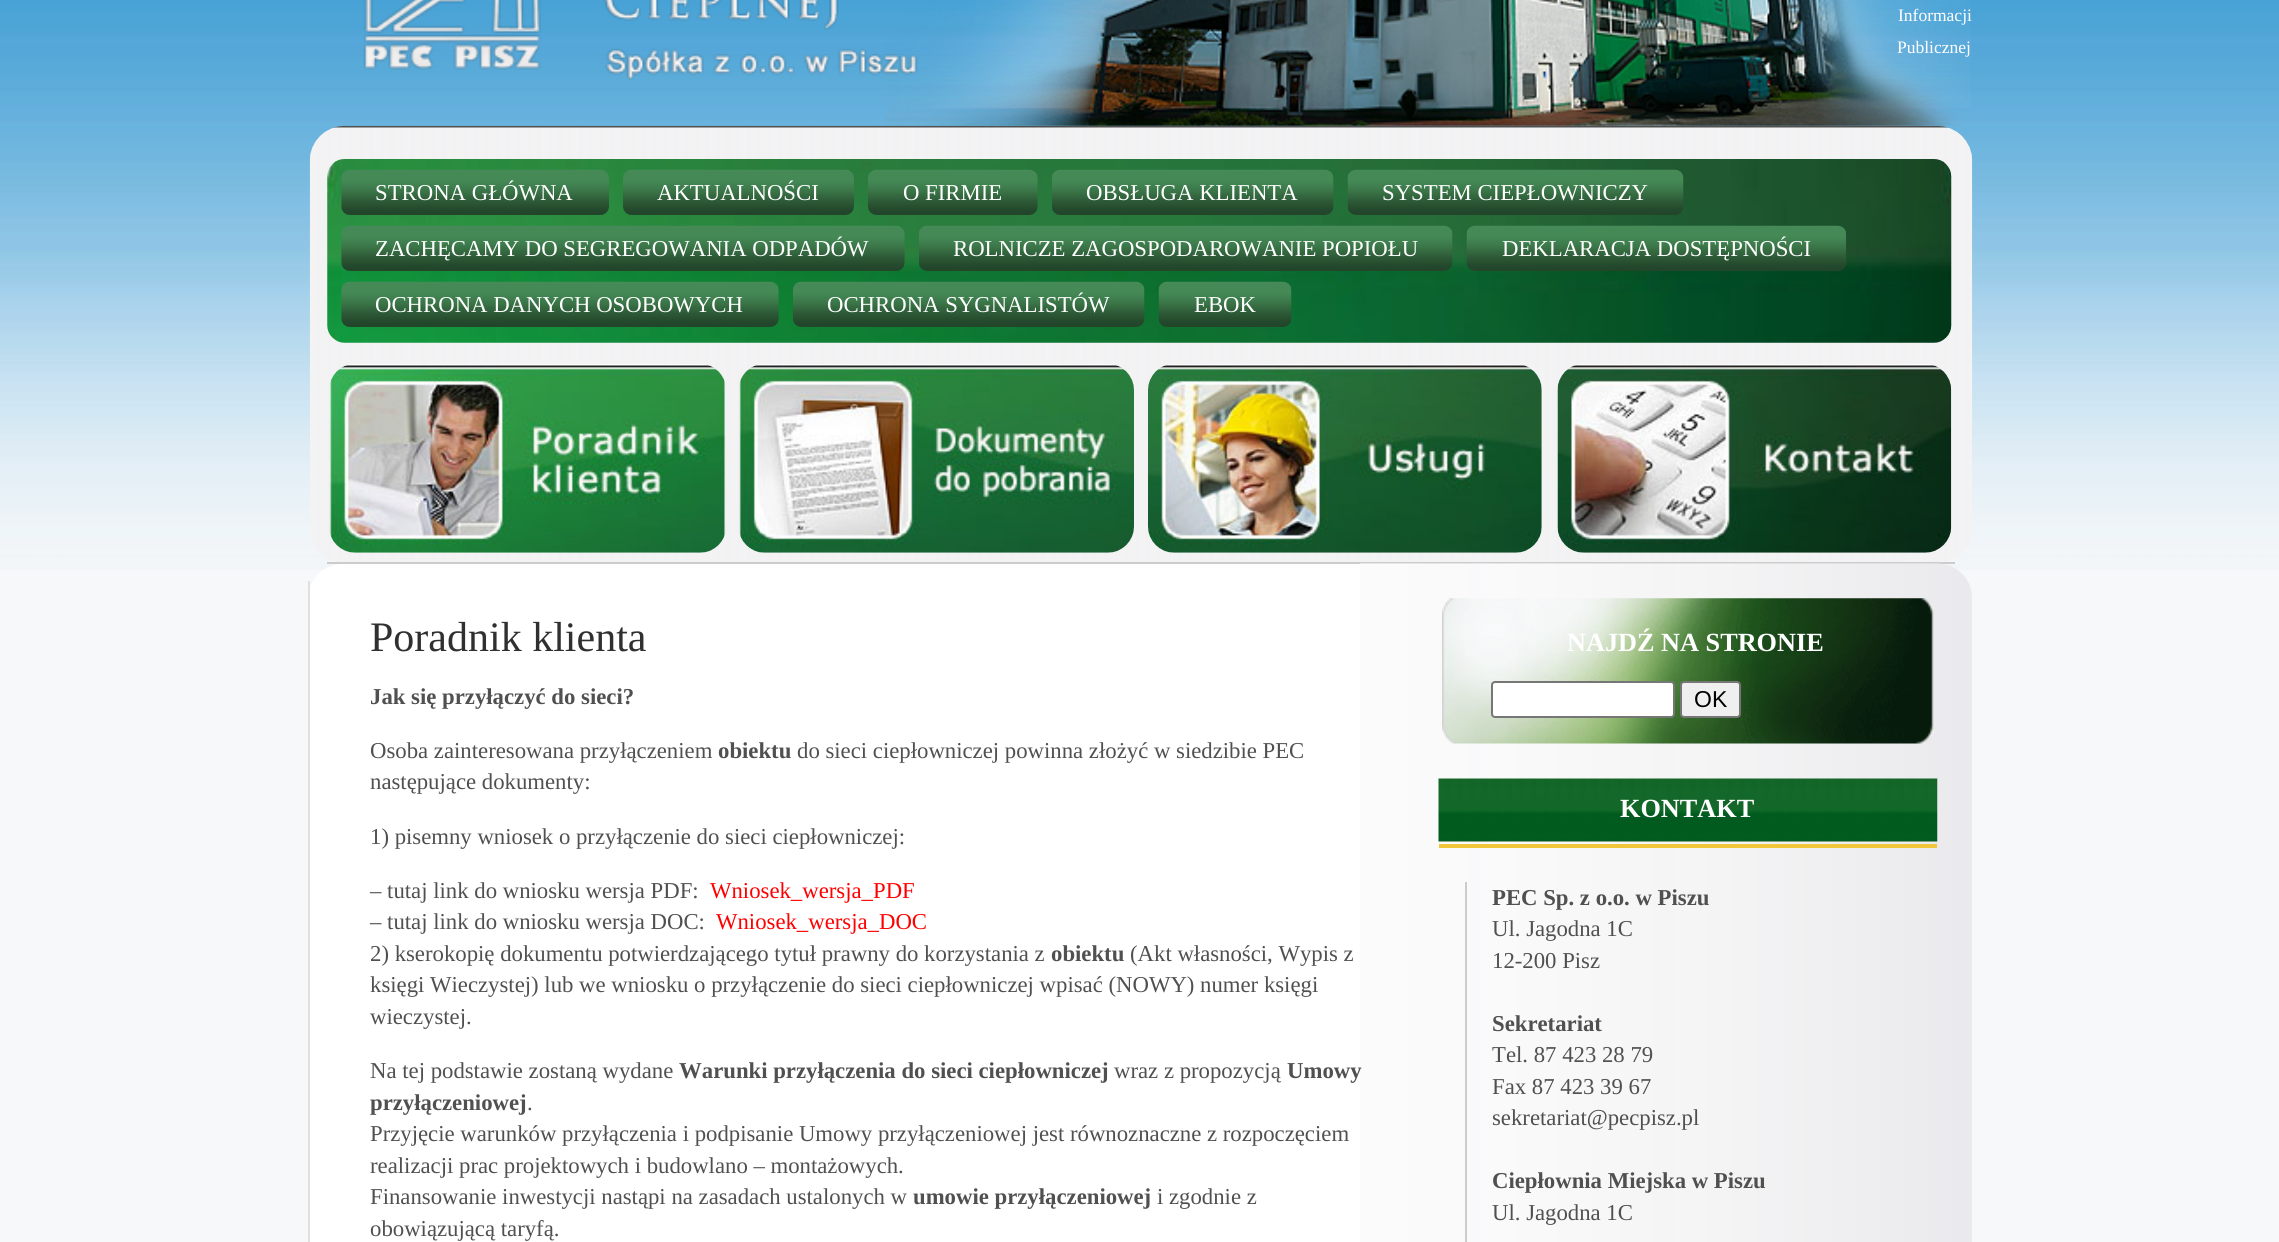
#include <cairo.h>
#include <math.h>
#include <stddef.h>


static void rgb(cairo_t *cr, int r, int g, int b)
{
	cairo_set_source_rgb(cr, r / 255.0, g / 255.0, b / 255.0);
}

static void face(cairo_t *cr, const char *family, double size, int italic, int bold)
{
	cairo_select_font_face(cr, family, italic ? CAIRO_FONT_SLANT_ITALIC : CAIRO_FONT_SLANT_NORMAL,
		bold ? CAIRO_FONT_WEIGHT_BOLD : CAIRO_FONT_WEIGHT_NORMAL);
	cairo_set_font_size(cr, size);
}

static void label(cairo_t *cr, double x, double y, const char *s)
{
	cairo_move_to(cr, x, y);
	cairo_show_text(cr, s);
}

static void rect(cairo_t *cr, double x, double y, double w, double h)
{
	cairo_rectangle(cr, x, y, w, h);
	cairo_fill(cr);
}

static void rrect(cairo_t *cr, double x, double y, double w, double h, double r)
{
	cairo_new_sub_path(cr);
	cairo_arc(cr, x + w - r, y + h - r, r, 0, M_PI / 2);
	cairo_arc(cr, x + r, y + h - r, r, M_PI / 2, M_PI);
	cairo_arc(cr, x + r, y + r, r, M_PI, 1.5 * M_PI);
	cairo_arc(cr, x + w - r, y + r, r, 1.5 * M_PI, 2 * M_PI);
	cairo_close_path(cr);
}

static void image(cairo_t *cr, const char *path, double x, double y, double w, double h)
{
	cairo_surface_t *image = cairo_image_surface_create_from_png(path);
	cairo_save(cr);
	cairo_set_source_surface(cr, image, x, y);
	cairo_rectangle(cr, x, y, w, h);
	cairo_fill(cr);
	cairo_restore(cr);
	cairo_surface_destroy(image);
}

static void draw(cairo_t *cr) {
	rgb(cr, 247, 248, 250);
	cairo_paint(cr);
	image(cr, "image0.png", 0, 0, 2279, 570);
	image(cr, "image1.png", 884, 0, 1087, 126);
	image(cr, "image2.png", 363, 0, 178, 70);
	image(cr, "image3.png", 604, 0, 314, 80);
	face(cr, "Liberation Serif", 17.5, 0, 0);
	rgb(cr, 255, 255, 255);
	label(cr, 1898, 21, "Informacji");
	label(cr, 1897, 53, "Publicznej");
	image(cr, "image4.png", 309, 125, 1664, 437);
	rgb(cr, 204, 204, 204);
	rect(cr, 327, 562, 1628, 2);
	image(cr, "image5.png", 327, 159, 1625, 184);
	image(cr, "image6.png", 341, 169, 268, 46);
	face(cr, "Liberation Serif", 22.75, 0, 0);
	rgb(cr, 255, 255, 255);
	label(cr, 375, 200, "STRONA GŁÓWNA");
	image(cr, "image7.png", 623, 169, 231, 46);
	label(cr, 657, 200, "AKTUALNOŚCI");
	image(cr, "image8.png", 868, 169, 170, 46);
	label(cr, 903, 200, "O FIRMIE");
	image(cr, "image9.png", 1052, 169, 282, 46);
	label(cr, 1086, 200, "OBSŁUGA KLIENTA");
	image(cr, "image10.png", 1347, 169, 337, 46);
	label(cr, 1382, 200, "SYSTEM CIEPŁOWNICZY");
	image(cr, "image11.png", 341, 225, 564, 46);
	label(cr, 375, 256, "ZACHĘCAMY DO SEGREGOWANIA ODPADÓW");
	image(cr, "image12.png", 919, 225, 534, 46);
	label(cr, 953, 256, "ROLNICZE ZAGOSPODAROWANIE POPIOŁU");
	image(cr, "image13.png", 1466, 225, 381, 46);
	label(cr, 1502, 256, "DEKLARACJA DOSTĘPNOŚCI");
	image(cr, "image14.png", 341, 281, 438, 46);
	label(cr, 375, 312, "OCHRONA DANYCH OSOBOWYCH");
	image(cr, "image15.png", 793, 281, 352, 46);
	label(cr, 827, 312, "OCHRONA SYGNALISTÓW");
	image(cr, "image16.png", 1158, 281, 134, 46);
	label(cr, 1194, 312, "EBOK");
	image(cr, "image17.png", 329, 364, 397, 189);
	image(cr, "image18.png", 739, 364, 395, 189);
	image(cr, "image19.png", 1148, 364, 394, 189);
	image(cr, "image20.png", 1557, 364, 395, 189);
	rrect(cr, 308, 564, 1664, 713, 35);
	cairo_fill(cr);
	image(cr, "image21.png", 1359, 563, 613, 679);
	rgb(cr, 224, 224, 224);
	rect(cr, 308, 581, 2, 661);
	face(cr, "Liberation Serif", 42, 0, 0);
	rgb(cr, 48, 48, 48);
	label(cr, 370, 651, "Poradnik klienta");
	face(cr, "Liberation Serif", 22.75, 0, 1);
	rgb(cr, 80, 80, 80);
	label(cr, 370, 704, "Jak się przyłączyć do sieci?");
	face(cr, "Liberation Serif", 22.75, 0, 0);
	label(cr, 370, 758, "Osoba zainteresowana przyłączeniem");
	face(cr, "Liberation Serif", 22.75, 0, 1);
	label(cr, 718, 758, "obiektu");
	face(cr, "Liberation Serif", 22.75, 0, 0);
	label(cr, 797, 758, "do sieci ciepłowniczej powinna złożyć w siedzibie PEC");
	label(cr, 370, 789, "następujące dokumenty:");
	label(cr, 370, 844, "1) pisemny wniosek o przyłączenie do sieci ciepłowniczej:");
	label(cr, 370, 898, "– tutaj link do wniosku wersja PDF:");
	rgb(cr, 255, 0, 0);
	label(cr, 710, 898, "Wniosek_wersja_PDF");
	rgb(cr, 80, 80, 80);
	label(cr, 370, 929, "– tutaj link do wniosku wersja DOC:");
	rgb(cr, 255, 0, 0);
	label(cr, 716, 929, "Wniosek_wersja_DOC");
	rgb(cr, 80, 80, 80);
	label(cr, 370, 961, "2) kserokopię dokumentu potwierdzającego tytuł prawny do korzystania z");
	face(cr, "Liberation Serif", 22.75, 0, 1);
	label(cr, 1051, 961, "obiektu");
	face(cr, "Liberation Serif", 22.75, 0, 0);
	label(cr, 1130, 961, "(Akt własności, Wypis z");
	label(cr, 370, 992, "księgi Wieczystej) lub we wniosku o przyłączenie do sieci ciepłowniczej wpisać (NOWY) numer księgi");
	label(cr, 370, 1024, "wieczystej.");
	label(cr, 370, 1078, "Na tej podstawie zostaną wydane");
	face(cr, "Liberation Serif", 22.75, 0, 1);
	label(cr, 679, 1078, "Warunki przyłączenia do sieci ciepłowniczej");
	face(cr, "Liberation Serif", 22.75, 0, 0);
	label(cr, 1114, 1078, "wraz z propozycją");
	face(cr, "Liberation Serif", 22.75, 0, 1);
	label(cr, 1287, 1078, "Umowy");
	label(cr, 370, 1110, "przyłączeniowej");
	face(cr, "Liberation Serif", 22.75, 0, 0);
	label(cr, 527, 1110, ".");
	label(cr, 370, 1141, "Przyjęcie warunków przyłączenia i podpisanie Umowy przyłączeniowej jest równoznaczne z rozpoczęciem");
	label(cr, 370, 1173, "realizacji prac projektowych i budowlano – montażowych.");
	label(cr, 370, 1204, "Finansowanie inwestycji nastąpi na zasadach ustalonych w");
	face(cr, "Liberation Serif", 22.75, 0, 1);
	label(cr, 913, 1204, "umowie przyłączeniowej");
	face(cr, "Liberation Serif", 22.75, 0, 0);
	label(cr, 1157, 1204, "i zgodnie z");
	label(cr, 370, 1236, "obowiązującą taryfą.");
	image(cr, "image22.png", 1442, 598, 492, 146);
	face(cr, "Liberation Serif", 26.25, 0, 1);
	rgb(cr, 255, 255, 255);
	label(cr, 1567, 651, "NAJDŹ NA STRONIE");
	rrect(cr, 1492, 682, 182, 35, 3);
	cairo_fill_preserve(cr);
	rgb(cr, 118, 118, 118);
	cairo_stroke(cr);
	rgb(cr, 239, 239, 239);
	rrect(cr, 1681, 682, 59, 35, 3);
	cairo_fill_preserve(cr);
	rgb(cr, 118, 118, 118);
	cairo_stroke(cr);
	face(cr, "Liberation Sans", 23, 0, 0);
	rgb(cr, 0, 0, 0);
	label(cr, 1694, 707, "OK");
	image(cr, "image23.png", 1438, 778, 500, 64);
	rgb(cr, 241, 198, 59);
	rect(cr, 1439, 844, 498, 4);
	face(cr, "Liberation Serif", 26.25, 0, 1);
	rgb(cr, 255, 255, 255);
	label(cr, 1620, 817, "KONTAKT");
	rgb(cr, 204, 204, 204);
	rect(cr, 1465, 882, 2, 360);
	face(cr, "Liberation Serif", 22.75, 0, 1);
	rgb(cr, 80, 80, 80);
	label(cr, 1492, 905, "PEC Sp. z o.o. w Piszu");
	face(cr, "Liberation Serif", 22.75, 0, 0);
	label(cr, 1492, 936, "Ul. Jagodna 1C");
	label(cr, 1492, 968, "12-200 Pisz");
	face(cr, "Liberation Serif", 22.75, 0, 1);
	label(cr, 1492, 1031, "Sekretariat");
	face(cr, "Liberation Serif", 22.75, 0, 0);
	label(cr, 1492, 1062, "Tel. 87 423 28 79");
	label(cr, 1492, 1094, "Fax 87 423 39 67");
	label(cr, 1492, 1125, "sekretariat@pecpisz.pl");
	face(cr, "Liberation Serif", 22.75, 0, 1);
	label(cr, 1492, 1188, "Ciepłownia Miejska w Piszu");
	face(cr, "Liberation Serif", 22.75, 0, 0);
	label(cr, 1492, 1220, "Ul. Jagodna 1C");
}

int main(void) {
	cairo_surface_t *surface = cairo_image_surface_create(CAIRO_FORMAT_RGB24, 2279, 1242);
	cairo_t *cr = cairo_create(surface);
	cairo_font_options_t *options = cairo_font_options_create();
	cairo_font_options_set_hint_metrics(options, CAIRO_HINT_METRICS_OFF);
	cairo_font_options_set_hint_style(options, CAIRO_HINT_STYLE_NONE);
	cairo_set_font_options(cr, options);
	cairo_set_miter_limit(cr, 4);
	draw(cr);
	cairo_surface_write_to_png(surface, "render.png");
	cairo_font_options_destroy(options);
	cairo_destroy(cr);
	cairo_surface_destroy(surface);
	return 0;
}
